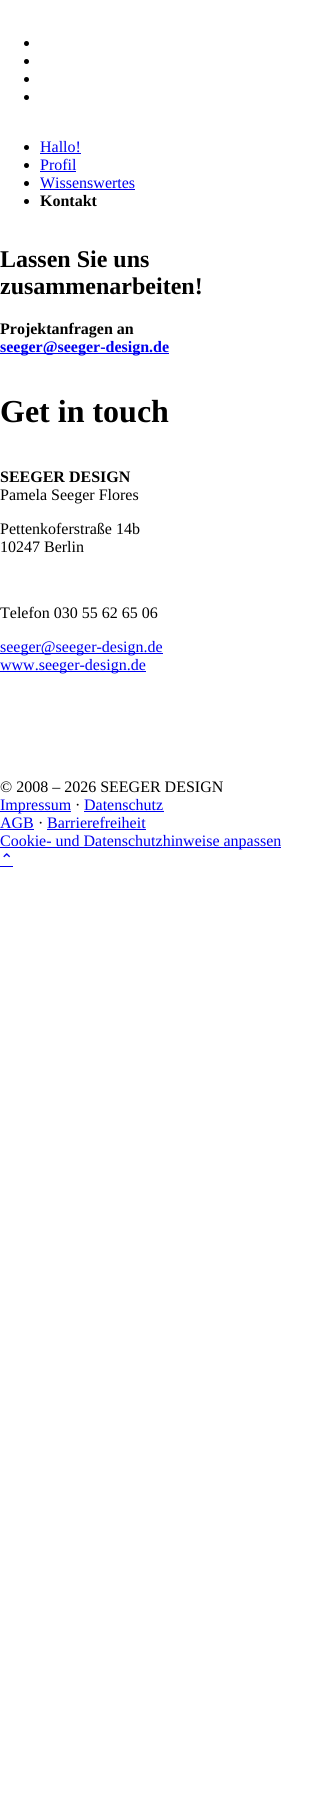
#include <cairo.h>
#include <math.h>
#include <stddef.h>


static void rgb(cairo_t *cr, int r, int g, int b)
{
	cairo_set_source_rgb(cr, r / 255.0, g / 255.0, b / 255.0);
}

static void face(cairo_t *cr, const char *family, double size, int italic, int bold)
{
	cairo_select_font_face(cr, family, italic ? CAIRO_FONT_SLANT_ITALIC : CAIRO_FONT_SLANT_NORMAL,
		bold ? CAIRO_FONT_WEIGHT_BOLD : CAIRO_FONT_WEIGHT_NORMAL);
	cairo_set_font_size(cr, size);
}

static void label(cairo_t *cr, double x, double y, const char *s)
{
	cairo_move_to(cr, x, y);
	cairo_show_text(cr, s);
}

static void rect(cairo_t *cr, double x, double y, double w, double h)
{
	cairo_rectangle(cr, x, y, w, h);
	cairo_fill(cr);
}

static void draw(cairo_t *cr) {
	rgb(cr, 255, 255, 255);
	cairo_paint(cr);
	rgb(cr, 0, 0, 0);
	cairo_arc(cr, 26.5, 43.5, 2.5, 0, 2 * M_PI);
	cairo_fill(cr);
	cairo_arc(cr, 26.5, 61.5, 2.5, 0, 2 * M_PI);
	cairo_fill(cr);
	cairo_arc(cr, 26.5, 79.5, 2.5, 0, 2 * M_PI);
	cairo_fill(cr);
	cairo_arc(cr, 26.5, 97.5, 2.5, 0, 2 * M_PI);
	cairo_fill(cr);
	cairo_arc(cr, 26.5, 147.5, 2.5, 0, 2 * M_PI);
	cairo_fill(cr);
	face(cr, "Liberation Serif", 16, 0, 0);
	rgb(cr, 0, 0, 238);
	label(cr, 40, 152, "Hallo!");
	rect(cr, 40, 153, 41, 1);
	rgb(cr, 0, 0, 0);
	cairo_new_path(cr);
	cairo_arc(cr, 26.5, 165.5, 2.5, 0, 2 * M_PI);
	cairo_fill(cr);
	rgb(cr, 0, 0, 238);
	label(cr, 40, 170, "Profil");
	rect(cr, 40, 171, 36, 1);
	rgb(cr, 0, 0, 0);
	cairo_new_path(cr);
	cairo_arc(cr, 26.5, 183.5, 2.5, 0, 2 * M_PI);
	cairo_fill(cr);
	rgb(cr, 0, 0, 238);
	label(cr, 40, 188, "Wissenswertes");
	rect(cr, 40, 189, 95, 1);
	rgb(cr, 0, 0, 0);
	cairo_new_path(cr);
	cairo_arc(cr, 26.5, 201.5, 2.5, 0, 2 * M_PI);
	cairo_fill(cr);
	face(cr, "Liberation Serif", 16, 0, 1);
	label(cr, 40, 206, "Kontakt");
	face(cr, "Liberation Serif", 24, 0, 1);
	label(cr, 0, 267, "Lassen Sie uns");
	label(cr, 0, 294, "zusammenarbeiten!");
	face(cr, "Liberation Serif", 16, 0, 1);
	label(cr, 0, 334, "Projektanfragen an");
	rgb(cr, 0, 0, 238);
	rect(cr, 0, 353, 169, 1);
	label(cr, 0, 352, "seeger@seeger-design.de");
	face(cr, "Liberation Serif", 32, 0, 1);
	rgb(cr, 0, 0, 0);
	label(cr, 0, 422, "Get in touch");
	face(cr, "Liberation Serif", 16, 0, 1);
	label(cr, 0, 482, "SEEGER DESIGN");
	face(cr, "Liberation Serif", 16, 0, 0);
	label(cr, 0, 500, "Pamela Seeger Flores");
	label(cr, 0, 534, "Pettenkoferstraße 14b");
	label(cr, 0, 552, "10247 Berlin");
	label(cr, 0, 618, "Telefon 030 55 62 65 06");
	rgb(cr, 0, 0, 238);
	rect(cr, 0, 653, 163, 1);
	label(cr, 0, 652, "seeger@seeger-design.de");
	rect(cr, 0, 671, 146, 1);
	label(cr, 0, 670, "www.seeger-design.de");
	rgb(cr, 0, 0, 0);
	label(cr, 0, 792, "© 2008 – 2026 SEEGER DESIGN");
	rgb(cr, 0, 0, 238);
	rect(cr, 0, 811, 71, 1);
	label(cr, 0, 810, "Impressum");
	rgb(cr, 0, 0, 0);
	label(cr, 75, 810, "·");
	rgb(cr, 0, 0, 238);
	label(cr, 84, 810, "Datenschutz");
	rect(cr, 84, 811, 80, 1);
	label(cr, 0, 828, "AGB");
	rect(cr, 0, 829, 34, 1);
	rgb(cr, 0, 0, 0);
	label(cr, 38, 828, "·");
	rgb(cr, 0, 0, 238);
	label(cr, 47, 828, "Barrierefreiheit");
	rect(cr, 47, 829, 99, 1);
	rect(cr, 0, 847, 281, 1);
	label(cr, 0, 846, "Cookie- und Datenschutzhinweise anpassen");
	face(cr, "DejaVu Sans", 16, 0, 0);
	label(cr, 0, 865, "⌃");
	rect(cr, 0, 866, 13, 1);
}

int main(void) {
	cairo_surface_t *surface = cairo_image_surface_create(CAIRO_FORMAT_RGB24, 329, 1798);
	cairo_t *cr = cairo_create(surface);
	cairo_font_options_t *options = cairo_font_options_create();
	cairo_font_options_set_hint_metrics(options, CAIRO_HINT_METRICS_OFF);
	cairo_font_options_set_hint_style(options, CAIRO_HINT_STYLE_NONE);
	cairo_set_font_options(cr, options);
	cairo_set_miter_limit(cr, 4);
	draw(cr);
	cairo_surface_write_to_png(surface, "render.png");
	cairo_font_options_destroy(options);
	cairo_destroy(cr);
	cairo_surface_destroy(surface);
	return 0;
}
